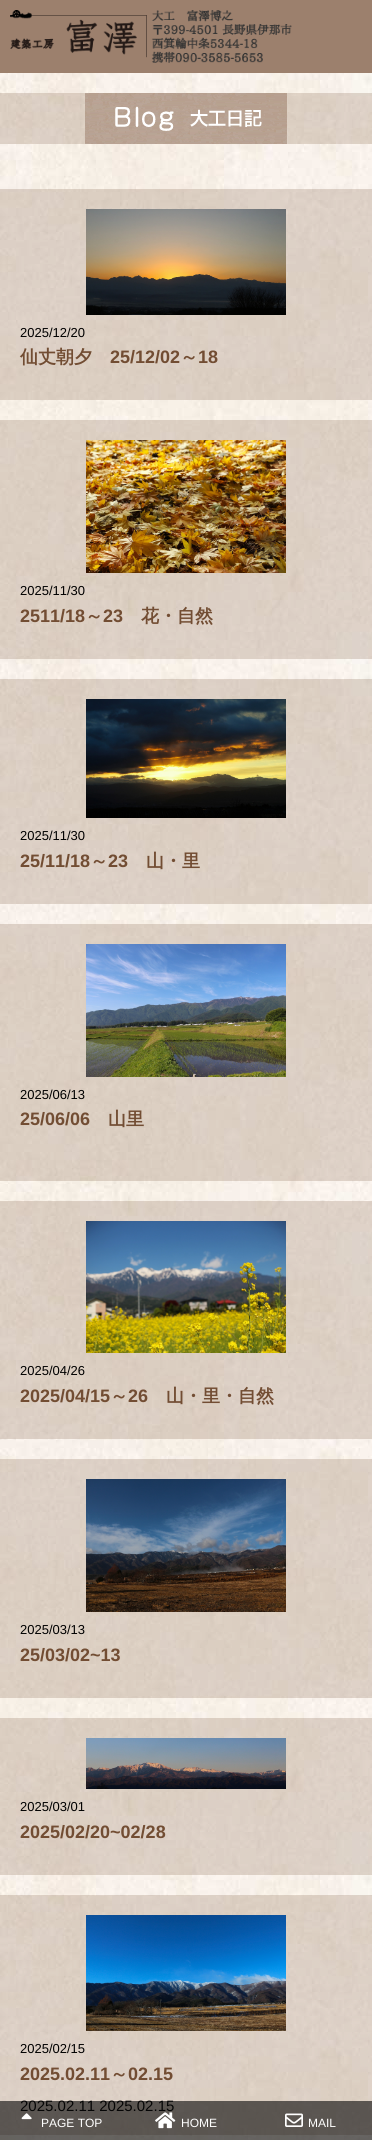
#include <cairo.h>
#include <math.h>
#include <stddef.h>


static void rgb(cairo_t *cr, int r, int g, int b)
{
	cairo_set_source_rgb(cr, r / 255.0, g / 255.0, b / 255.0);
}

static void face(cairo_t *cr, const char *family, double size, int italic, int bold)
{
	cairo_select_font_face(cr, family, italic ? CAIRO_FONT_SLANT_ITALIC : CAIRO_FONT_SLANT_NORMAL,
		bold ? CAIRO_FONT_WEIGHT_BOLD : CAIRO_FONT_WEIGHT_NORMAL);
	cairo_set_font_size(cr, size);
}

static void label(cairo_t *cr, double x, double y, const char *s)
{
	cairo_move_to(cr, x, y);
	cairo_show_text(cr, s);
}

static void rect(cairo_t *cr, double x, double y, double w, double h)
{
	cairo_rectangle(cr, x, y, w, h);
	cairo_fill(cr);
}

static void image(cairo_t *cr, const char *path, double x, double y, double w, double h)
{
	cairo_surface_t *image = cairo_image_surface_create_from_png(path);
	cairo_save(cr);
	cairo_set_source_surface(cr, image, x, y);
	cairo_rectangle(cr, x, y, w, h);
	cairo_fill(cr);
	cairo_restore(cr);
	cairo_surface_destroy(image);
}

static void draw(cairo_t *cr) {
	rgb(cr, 255, 255, 255);
	cairo_paint(cr);
	image(cr, "image0.png", 0, 73, 372, 2067);
	rgb(cr, 156, 128, 109);
	rect(cr, 0, 0, 372, 73);
	image(cr, "image1.png", 10, 10, 282, 53);
	cairo_set_source_rgba(cr, 0.608, 0.498, 0.42, 0.3);
	rect(cr, 0, 93, 372, 51);
	image(cr, "image2.png", 85, 93, 202, 51);
	rect(cr, 0, 189, 372, 211);
	image(cr, "image3.png", 86, 209, 200, 106);
	face(cr, "Liberation Sans", 13, 0, 0);
	rgb(cr, 0, 0, 0);
	label(cr, 20, 337, "2025/12/20");
	face(cr, "WenQuanYi Zen Hei", 18, 0, 1);
	rgb(cr, 114, 77, 51);
	label(cr, 20, 363, "仙丈朝夕");
	face(cr, "Liberation Sans", 18, 0, 1);
	label(cr, 110, 363, "25/12/02");
	face(cr, "WenQuanYi Zen Hei", 18, 0, 1);
	label(cr, 180, 363, "～");
	face(cr, "Liberation Sans", 18, 0, 1);
	label(cr, 198, 363, "18");
	cairo_set_source_rgba(cr, 0.608, 0.498, 0.42, 0.3);
	rect(cr, 0, 420, 372, 239);
	image(cr, "image4.png", 86, 440, 200, 133);
	face(cr, "Liberation Sans", 13, 0, 0);
	rgb(cr, 0, 0, 0);
	label(cr, 20, 595, "2025/11/30");
	face(cr, "Liberation Sans", 18, 0, 1);
	rgb(cr, 114, 77, 51);
	label(cr, 20, 622, "2511/18");
	face(cr, "WenQuanYi Zen Hei", 18, 0, 1);
	label(cr, 85, 622, "～");
	face(cr, "Liberation Sans", 18, 0, 1);
	label(cr, 103, 622, "23");
	face(cr, "WenQuanYi Zen Hei", 18, 0, 1);
	label(cr, 141, 622, "花・自然");
	cairo_set_source_rgba(cr, 0.608, 0.498, 0.42, 0.3);
	rect(cr, 0, 679, 372, 225);
	image(cr, "image5.png", 86, 699, 200, 119);
	face(cr, "Liberation Sans", 13, 0, 0);
	rgb(cr, 0, 0, 0);
	label(cr, 20, 840, "2025/11/30");
	face(cr, "Liberation Sans", 18, 0, 1);
	rgb(cr, 114, 77, 51);
	label(cr, 20, 867, "25/11/18");
	face(cr, "WenQuanYi Zen Hei", 18, 0, 1);
	label(cr, 90, 867, "～");
	face(cr, "Liberation Sans", 18, 0, 1);
	label(cr, 108, 867, "23");
	face(cr, "WenQuanYi Zen Hei", 18, 0, 1);
	label(cr, 146, 867, "山・里");
	cairo_set_source_rgba(cr, 0.608, 0.498, 0.42, 0.3);
	rect(cr, 0, 924, 372, 257);
	image(cr, "image6.png", 86, 944, 200, 133);
	face(cr, "Liberation Sans", 13, 0, 0);
	rgb(cr, 0, 0, 0);
	label(cr, 20, 1099, "2025/06/13");
	face(cr, "Liberation Sans", 18, 0, 1);
	rgb(cr, 114, 77, 51);
	label(cr, 20, 1125, "25/06/06");
	face(cr, "WenQuanYi Zen Hei", 18, 0, 1);
	label(cr, 108, 1125, "山里");
	cairo_set_source_rgba(cr, 0.608, 0.498, 0.42, 0.3);
	rect(cr, 0, 1201, 372, 238);
	image(cr, "image7.png", 86, 1221, 200, 132);
	face(cr, "Liberation Sans", 13, 0, 0);
	rgb(cr, 0, 0, 0);
	label(cr, 20, 1375, "2025/04/26");
	face(cr, "Liberation Sans", 18, 0, 1);
	rgb(cr, 114, 77, 51);
	label(cr, 20, 1402, "2025/04/15");
	face(cr, "WenQuanYi Zen Hei", 18, 0, 1);
	label(cr, 110, 1402, "～");
	face(cr, "Liberation Sans", 18, 0, 1);
	label(cr, 128, 1402, "26");
	face(cr, "WenQuanYi Zen Hei", 18, 0, 1);
	label(cr, 166, 1402, "山・里・自然");
	cairo_set_source_rgba(cr, 0.608, 0.498, 0.42, 0.3);
	rect(cr, 0, 1459, 372, 239);
	image(cr, "image8.png", 86, 1479, 200, 133);
	face(cr, "Liberation Sans", 13, 0, 0);
	rgb(cr, 0, 0, 0);
	label(cr, 20, 1634, "2025/03/13");
	face(cr, "Liberation Sans", 18, 0, 1);
	rgb(cr, 114, 77, 51);
	label(cr, 20, 1661, "25/03/02~13");
	cairo_set_source_rgba(cr, 0.608, 0.498, 0.42, 0.3);
	rect(cr, 0, 1718, 372, 157);
	image(cr, "image9.png", 86, 1738, 200, 51);
	face(cr, "Liberation Sans", 13, 0, 0);
	rgb(cr, 0, 0, 0);
	label(cr, 20, 1811, "2025/03/01");
	face(cr, "Liberation Sans", 18, 0, 1);
	rgb(cr, 114, 77, 51);
	label(cr, 20, 1838, "2025/02/20~02/28");
	cairo_set_source_rgba(cr, 0.608, 0.498, 0.42, 0.3);
	rect(cr, 0, 1895, 372, 240);
	image(cr, "image10.png", 86, 1915, 200, 116);
	face(cr, "Liberation Sans", 13, 0, 0);
	rgb(cr, 0, 0, 0);
	label(cr, 20, 2053, "2025/02/15");
	face(cr, "Liberation Sans", 18, 0, 1);
	rgb(cr, 114, 77, 51);
	label(cr, 20, 2080, "2025.02.11");
	face(cr, "WenQuanYi Zen Hei", 18, 0, 1);
	label(cr, 110, 2080, "～");
	face(cr, "Liberation Sans", 18, 0, 1);
	label(cr, 128, 2080, "02.15");
	face(cr, "Liberation Sans", 15, 0, 0);
	rgb(cr, 0, 0, 0);
	label(cr, 20, 2111, "2025.02.11 2025.02.15");
	cairo_set_source_rgba(cr, 0.035, 0.035, 0.035, 0.61);
	rect(cr, 0, 2101, 372, 39);
	image(cr, "image11.png", 21, 2113, 11, 7);
	face(cr, "Liberation Sans", 12, 0, 0);
	rgb(cr, 255, 255, 255);
	label(cr, 41, 2127, "PAGE TOP");
	image(cr, "image12.png", 155, 2112, 21, 17);
	label(cr, 181, 2127, "HOME");
	image(cr, "image13.png", 285, 2113, 18, 14);
	label(cr, 308, 2127, "MAIL");
}

int main(void) {
	cairo_surface_t *surface = cairo_image_surface_create(CAIRO_FORMAT_RGB24, 372, 2140);
	cairo_t *cr = cairo_create(surface);
	cairo_font_options_t *options = cairo_font_options_create();
	cairo_font_options_set_hint_metrics(options, CAIRO_HINT_METRICS_OFF);
	cairo_font_options_set_hint_style(options, CAIRO_HINT_STYLE_NONE);
	cairo_set_font_options(cr, options);
	cairo_set_miter_limit(cr, 4);
	draw(cr);
	cairo_surface_write_to_png(surface, "render.png");
	cairo_font_options_destroy(options);
	cairo_destroy(cr);
	cairo_surface_destroy(surface);
	return 0;
}
